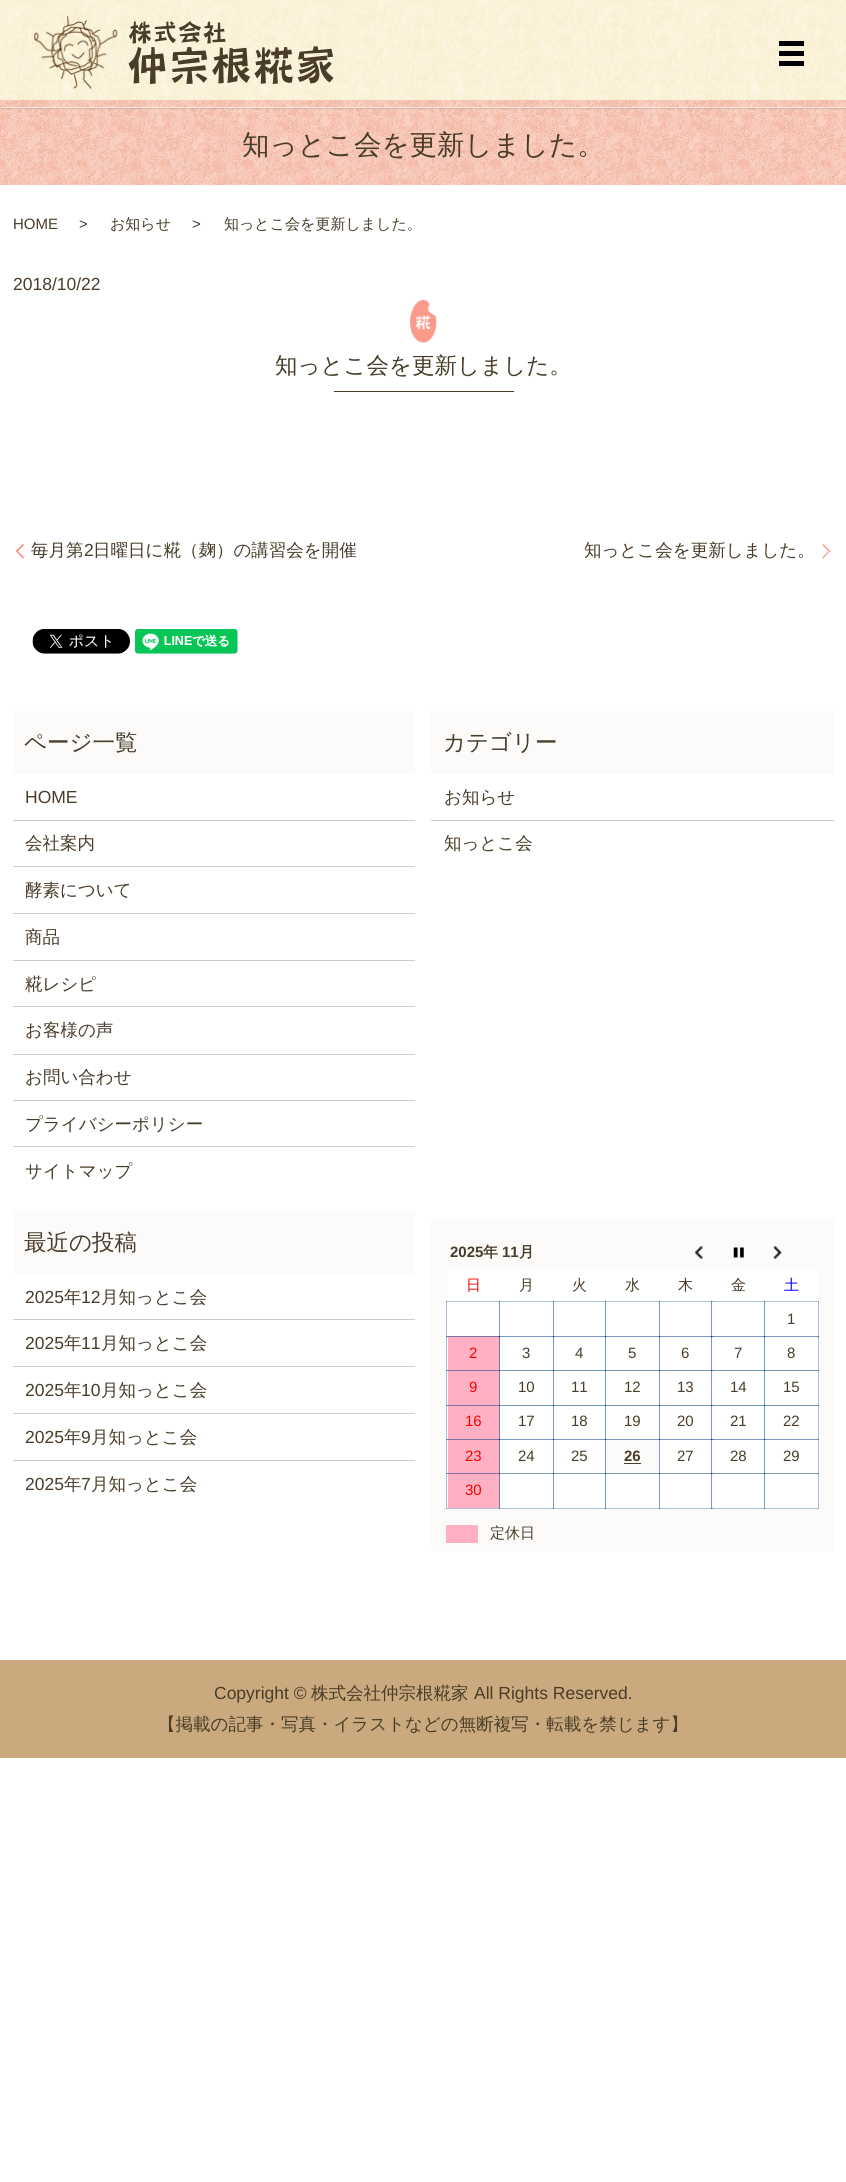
#include <cairo.h>
#include <math.h>
#include <stddef.h>


static void rgb(cairo_t *cr, int r, int g, int b)
{
	cairo_set_source_rgb(cr, r / 255.0, g / 255.0, b / 255.0);
}

static void face(cairo_t *cr, const char *family, double size, int italic, int bold)
{
	cairo_select_font_face(cr, family, italic ? CAIRO_FONT_SLANT_ITALIC : CAIRO_FONT_SLANT_NORMAL,
		bold ? CAIRO_FONT_WEIGHT_BOLD : CAIRO_FONT_WEIGHT_NORMAL);
	cairo_set_font_size(cr, size);
}

static void label(cairo_t *cr, double x, double y, const char *s)
{
	cairo_move_to(cr, x, y);
	cairo_show_text(cr, s);
}

static void rect(cairo_t *cr, double x, double y, double w, double h)
{
	cairo_rectangle(cr, x, y, w, h);
	cairo_fill(cr);
}

static void rrect(cairo_t *cr, double x, double y, double w, double h, double r)
{
	cairo_new_sub_path(cr);
	cairo_arc(cr, x + w - r, y + h - r, r, 0, M_PI / 2);
	cairo_arc(cr, x + r, y + h - r, r, M_PI / 2, M_PI);
	cairo_arc(cr, x + r, y + r, r, M_PI, 1.5 * M_PI);
	cairo_arc(cr, x + w - r, y + r, r, 1.5 * M_PI, 2 * M_PI);
	cairo_close_path(cr);
}

static void soft_shadow(cairo_t *cr, double x, double y, double w, double h, double r, double blur, double alpha)
{
	cairo_push_group_with_content(cr, CAIRO_CONTENT_ALPHA);
	cairo_set_operator(cr, CAIRO_OPERATOR_SOURCE);
	for (int i = 15; i >= -15 && fmin(w, h) + blur * i / 3 > 0; i -= 2) {
		double e = blur * i / 6;
		cairo_set_source_rgba(cr, 0, 0, 0, alpha * erfc((i - 1) / 8.5) / 2);
		rrect(cr, x - e, y - e, w + 2 * e, h + 2 * e, fmax(0, fmin(r + e + blur * .6, fmin(w, h) / 2 + e)));
		cairo_fill(cr);
	}
	cairo_pattern_t *soft = cairo_pop_group(cr);
	cairo_mask(cr, soft);
	cairo_pattern_destroy(soft);
}

static void image(cairo_t *cr, const char *path, double x, double y, double w, double h)
{
	cairo_surface_t *image = cairo_image_surface_create_from_png(path);
	cairo_save(cr);
	cairo_set_source_surface(cr, image, x, y);
	cairo_rectangle(cr, x, y, w, h);
	cairo_fill(cr);
	cairo_restore(cr);
	cairo_surface_destroy(image);
}

static void draw(cairo_t *cr) {
	rgb(cr, 255, 255, 255);
	cairo_paint(cr);
	image(cr, "image2.png", 0, 108, 846, 77);
	rgb(cr, 0, 0, 0);
	soft_shadow(cr, 0, 1, 846, 108, 0, 0.5, 0.1);
	rgb(cr, 255, 255, 255);
	rect(cr, 0, 107, 846, 1);
	image(cr, "image0.png", 0, 0, 846, 108);
	image(cr, "image1.png", 34, 16, 300, 73);
	rgb(cr, 0, 0, 0);
	rect(cr, 779, 41, 25, 5);
	rect(cr, 779, 51, 25, 5);
	rect(cr, 779, 61, 25, 5);
	face(cr, "WenQuanYi Zen Hei Medium", 27.5, 0, 0);
	rgb(cr, 73, 60, 41);
	label(cr, 242, 154, "知っとこ会を更新しました。");
	face(cr, "Liberation Sans", 15, 0, 0);
	label(cr, 13, 229, "HOME");
	label(cr, 79, 229, ">");
	face(cr, "WenQuanYi Zen Hei Medium", 15, 0, 0);
	label(cr, 110, 229, "お知らせ");
	face(cr, "Liberation Sans", 15, 0, 0);
	label(cr, 192, 229, ">");
	face(cr, "WenQuanYi Zen Hei Medium", 15, 0, 0);
	label(cr, 224, 229, "知っとこ会を更新しました。");
	face(cr, "Liberation Sans", 17.5, 0, 0);
	label(cr, 13, 290, "2018/10/22");
	image(cr, "image3.png", 410, 300, 27, 43);
	face(cr, "WenQuanYi Zen Hei Medium", 22.5, 0, 0);
	label(cr, 275, 373, "知っとこ会を更新しました。");
	rect(cr, 334, 391, 180, 1);
	rgb(cr, 249, 121, 101);
	cairo_new_path(cr);
	cairo_move_to(cr, 16, 551);
	cairo_line_to(cr, 23, 544);
	cairo_line_to(cr, 24, 545);
	cairo_line_to(cr, 17, 552);
	cairo_close_path(cr);
	cairo_fill(cr);
	face(cr, "WenQuanYi Zen Hei Medium", 17.5, 0, 0);
	rgb(cr, 73, 60, 41);
	label(cr, 31, 556, "毎月第");
	face(cr, "Liberation Sans", 17.5, 0, 0);
	label(cr, 84, 556, "2");
	face(cr, "WenQuanYi Zen Hei Medium", 17.5, 0, 0);
	label(cr, 93, 556, "日曜日に糀（麹）の講習会を開催");
	rgb(cr, 249, 121, 101);
	cairo_new_path(cr);
	cairo_move_to(cr, 23, 558.5);
	cairo_line_to(cr, 16, 551);
	cairo_line_to(cr, 17, 550.5);
	cairo_line_to(cr, 24, 557.5);
	cairo_close_path(cr);
	cairo_fill(cr);
	rgb(cr, 73, 60, 41);
	label(cr, 584, 556, "知っとこ会を更新しました。");
	rgb(cr, 249, 121, 101);
	cairo_new_path(cr);
	cairo_move_to(cr, 823, 544);
	cairo_line_to(cr, 830, 551);
	cairo_line_to(cr, 829.5, 552);
	cairo_line_to(cr, 822.5, 545);
	cairo_close_path(cr);
	cairo_fill(cr);
	cairo_new_path(cr);
	cairo_move_to(cr, 830, 551);
	cairo_line_to(cr, 823, 558.5);
	cairo_line_to(cr, 822.5, 557.5);
	cairo_line_to(cr, 829.5, 550.5);
	cairo_close_path(cr);
	cairo_fill(cr);
	image(cr, "image4.png", 32, 629, 98, 25);
	image(cr, "image5.png", 135, 629, 103, 25);
	rgb(cr, 252, 251, 249);
	rect(cr, 13, 711, 402, 63);
	face(cr, "WenQuanYi Zen Hei Medium", 22.5, 0, 0);
	rgb(cr, 73, 60, 41);
	label(cr, 24, 750, "ページ一覧");
	rgb(cr, 204, 204, 204);
	rect(cr, 13, 820, 402, 1);
	face(cr, "Liberation Sans", 17.5, 0, 0);
	rgb(cr, 73, 60, 41);
	label(cr, 25, 803, "HOME");
	rgb(cr, 204, 204, 204);
	rect(cr, 13, 866, 402, 1);
	face(cr, "WenQuanYi Zen Hei Medium", 17.5, 0, 0);
	rgb(cr, 73, 60, 41);
	label(cr, 25, 849, "会社案内");
	rgb(cr, 204, 204, 204);
	rect(cr, 13, 913, 402, 1);
	rgb(cr, 73, 60, 41);
	label(cr, 25, 896, "酵素について");
	rgb(cr, 204, 204, 204);
	rect(cr, 13, 960, 402, 1);
	rgb(cr, 73, 60, 41);
	label(cr, 25, 943, "商品");
	rgb(cr, 204, 204, 204);
	rect(cr, 13, 1006, 402, 1);
	rgb(cr, 73, 60, 41);
	label(cr, 25, 990, "糀レシピ");
	rgb(cr, 204, 204, 204);
	rect(cr, 13, 1054, 402, 1);
	rgb(cr, 73, 60, 41);
	label(cr, 25, 1036, "お客様の声");
	rgb(cr, 204, 204, 204);
	rect(cr, 13, 1100, 402, 1);
	rgb(cr, 73, 60, 41);
	label(cr, 25, 1083, "お問い合わせ");
	rgb(cr, 204, 204, 204);
	rect(cr, 13, 1146, 402, 1);
	rgb(cr, 73, 60, 41);
	label(cr, 25, 1130, "プライバシーポリシー");
	label(cr, 25, 1177, "サイトマップ");
	rgb(cr, 252, 251, 249);
	rect(cr, 431, 711, 403, 63);
	face(cr, "WenQuanYi Zen Hei Medium", 22.5, 0, 0);
	rgb(cr, 73, 60, 41);
	label(cr, 443, 750, "カテゴリー");
	rgb(cr, 204, 204, 204);
	rect(cr, 431, 820, 403, 1);
	face(cr, "WenQuanYi Zen Hei Medium", 17.5, 0, 0);
	rgb(cr, 73, 60, 41);
	label(cr, 444, 803, "お知らせ");
	label(cr, 444, 849, "知っとこ会");
	rgb(cr, 252, 251, 249);
	rect(cr, 13, 1211, 402, 63);
	face(cr, "WenQuanYi Zen Hei Medium", 22.5, 0, 0);
	rgb(cr, 73, 60, 41);
	label(cr, 24, 1250, "最近の投稿");
	rgb(cr, 204, 204, 204);
	rect(cr, 13, 1319, 402, 1);
	face(cr, "Liberation Sans", 17.5, 0, 0);
	rgb(cr, 73, 60, 41);
	label(cr, 25, 1303, "2025");
	face(cr, "WenQuanYi Zen Hei Medium", 17.5, 0, 0);
	label(cr, 64, 1303, "年");
	face(cr, "Liberation Sans", 17.5, 0, 0);
	label(cr, 81, 1303, "12");
	face(cr, "WenQuanYi Zen Hei Medium", 17.5, 0, 0);
	label(cr, 101, 1303, "月知っとこ会");
	rgb(cr, 204, 204, 204);
	rect(cr, 13, 1366, 402, 1);
	face(cr, "Liberation Sans", 17.5, 0, 0);
	rgb(cr, 73, 60, 41);
	label(cr, 25, 1349, "2025");
	face(cr, "WenQuanYi Zen Hei Medium", 17.5, 0, 0);
	label(cr, 64, 1349, "年");
	face(cr, "Liberation Sans", 17.5, 0, 0);
	label(cr, 81, 1349, "11");
	face(cr, "WenQuanYi Zen Hei Medium", 17.5, 0, 0);
	label(cr, 101, 1349, "月知っとこ会");
	rgb(cr, 204, 204, 204);
	rect(cr, 13, 1413, 402, 1);
	face(cr, "Liberation Sans", 17.5, 0, 0);
	rgb(cr, 73, 60, 41);
	label(cr, 25, 1396, "2025");
	face(cr, "WenQuanYi Zen Hei Medium", 17.5, 0, 0);
	label(cr, 64, 1396, "年");
	face(cr, "Liberation Sans", 17.5, 0, 0);
	label(cr, 81, 1396, "10");
	face(cr, "WenQuanYi Zen Hei Medium", 17.5, 0, 0);
	label(cr, 101, 1396, "月知っとこ会");
	rgb(cr, 204, 204, 204);
	rect(cr, 13, 1460, 402, 1);
	face(cr, "Liberation Sans", 17.5, 0, 0);
	rgb(cr, 73, 60, 41);
	label(cr, 25, 1443, "2025");
	face(cr, "WenQuanYi Zen Hei Medium", 17.5, 0, 0);
	label(cr, 64, 1443, "年");
	face(cr, "Liberation Sans", 17.5, 0, 0);
	label(cr, 81, 1443, "9");
	face(cr, "WenQuanYi Zen Hei Medium", 17.5, 0, 0);
	label(cr, 91, 1443, "月知っとこ会");
	face(cr, "Liberation Sans", 17.5, 0, 0);
	label(cr, 25, 1490, "2025");
	face(cr, "WenQuanYi Zen Hei Medium", 17.5, 0, 0);
	label(cr, 64, 1490, "年");
	face(cr, "Liberation Sans", 17.5, 0, 0);
	label(cr, 81, 1490, "7");
	face(cr, "WenQuanYi Zen Hei Medium", 17.5, 0, 0);
	label(cr, 91, 1490, "月知っとこ会");
	rgb(cr, 253, 251, 249);
	rect(cr, 431, 1219, 403, 332);
	rgb(cr, 177, 193, 211);
	rect(cr, 446, 1301, 1, 208);
	rect(cr, 446, 1301, 2, 1);
	rgb(cr, 124, 152, 184);
	rect(cr, 446, 1301, 1, 1);
	rgb(cr, 177, 193, 211);
	rect(cr, 818, 1301, 1, 173);
	rgb(cr, 124, 152, 184);
	rect(cr, 818, 1301, 1, 1);
	rect(cr, 446, 1336, 1, 2);
	rect(cr, 446, 1336, 2, 1);
	rgb(cr, 61, 103, 152);
	rect(cr, 446, 1336, 1, 1);
	rgb(cr, 124, 152, 184);
	rect(cr, 818, 1336, 1, 2);
	rgb(cr, 61, 103, 152);
	rect(cr, 818, 1336, 1, 1);
	rgb(cr, 124, 152, 184);
	rect(cr, 446, 1370, 2, 1);
	rgb(cr, 61, 103, 152);
	rect(cr, 446, 1370, 1, 1);
	rect(cr, 818, 1370, 1, 1);
	rgb(cr, 124, 152, 184);
	rect(cr, 446, 1405, 2, 1);
	rgb(cr, 61, 103, 152);
	rect(cr, 446, 1405, 1, 1);
	rect(cr, 818, 1405, 1, 1);
	rgb(cr, 124, 152, 184);
	rect(cr, 446, 1439, 2, 1);
	rgb(cr, 61, 103, 152);
	rect(cr, 446, 1439, 1, 1);
	rgb(cr, 124, 152, 184);
	rect(cr, 605, 1439, 55, 1);
	rgb(cr, 61, 103, 152);
	rect(cr, 818, 1439, 1, 1);
	rgb(cr, 177, 193, 211);
	rect(cr, 446, 1508, 373, 1);
	rgb(cr, 124, 152, 184);
	rect(cr, 446, 1508, 1, 1);
	rect(cr, 446, 1473, 2, 1);
	rgb(cr, 61, 103, 152);
	rect(cr, 446, 1473, 1, 1);
	rect(cr, 499, 1508, 1, 1);
	rect(cr, 553, 1508, 1, 1);
	rect(cr, 605, 1508, 1, 1);
	rgb(cr, 124, 152, 184);
	rect(cr, 605, 1473, 55, 1);
	rgb(cr, 61, 103, 152);
	rect(cr, 659, 1508, 1, 1);
	rgb(cr, 124, 152, 184);
	rect(cr, 711, 1508, 2, 1);
	rgb(cr, 61, 103, 152);
	rect(cr, 711, 1508, 1, 1);
	rect(cr, 764, 1508, 1, 1);
	rgb(cr, 177, 193, 211);
	rect(cr, 818, 1473, 1, 36);
	rgb(cr, 124, 152, 184);
	rect(cr, 818, 1508, 1, 1);
	rgb(cr, 61, 103, 152);
	rect(cr, 818, 1473, 1, 1);
	face(cr, "Liberation Sans", 15, 0, 1);
	rgb(cr, 73, 60, 41);
	label(cr, 450, 1257, "2025");
	face(cr, "WenQuanYi Zen Hei", 15, 0, 1);
	label(cr, 483, 1257, "年");
	face(cr, "Liberation Sans", 15, 0, 1);
	label(cr, 502, 1257, "11");
	face(cr, "WenQuanYi Zen Hei", 15, 0, 1);
	label(cr, 519, 1257, "月");
	image(cr, "image6.png", 694, 1246, 9, 13);
	image(cr, "image7.png", 733, 1247, 11, 11);
	image(cr, "image8.png", 773, 1246, 9, 13);
	rgb(cr, 255, 255, 255);
	rect(cr, 448, 1269, 370, 34);
	rgb(cr, 179, 196, 215);
	rect(cr, 448, 1301, 105, 1);
	rgb(cr, 125, 154, 187);
	rect(cr, 499, 1301, 1, 35);
	rgb(cr, 62, 105, 154);
	rect(cr, 499, 1301, 1, 1);
	face(cr, "WenQuanYi Zen Hei Medium", 15, 0, 0);
	rgb(cr, 255, 0, 0);
	label(cr, 466, 1290, "日");
	rgb(cr, 73, 60, 41);
	label(cr, 519, 1290, "月");
	rgb(cr, 125, 154, 187);
	rect(cr, 553, 1301, 1, 207);
	rgb(cr, 179, 196, 215);
	rect(cr, 553, 1301, 106, 1);
	rgb(cr, 62, 105, 154);
	rect(cr, 553, 1301, 1, 1);
	rgb(cr, 125, 154, 187);
	rect(cr, 605, 1301, 1, 35);
	rgb(cr, 62, 105, 154);
	rect(cr, 605, 1301, 1, 1);
	rgb(cr, 73, 60, 41);
	label(cr, 572, 1290, "火");
	label(cr, 625, 1290, "水");
	rgb(cr, 125, 154, 187);
	rect(cr, 659, 1301, 1, 207);
	rgb(cr, 179, 196, 215);
	rect(cr, 659, 1301, 159, 1);
	rgb(cr, 62, 105, 154);
	rect(cr, 659, 1301, 1, 1);
	rgb(cr, 125, 154, 187);
	rect(cr, 711, 1301, 1, 2);
	rect(cr, 711, 1301, 2, 1);
	rgb(cr, 62, 105, 154);
	rect(cr, 711, 1301, 1, 1);
	rgb(cr, 73, 60, 41);
	label(cr, 678, 1290, "木");
	rgb(cr, 125, 154, 187);
	rect(cr, 764, 1301, 1, 35);
	rgb(cr, 62, 105, 154);
	rect(cr, 764, 1301, 1, 1);
	rgb(cr, 73, 60, 41);
	label(cr, 731, 1290, "金");
	rgb(cr, 0, 0, 255);
	label(cr, 784, 1290, "土");
	rgb(cr, 255, 255, 255);
	rect(cr, 448, 1303, 51, 33);
	rect(cr, 500, 1303, 53, 33);
	rect(cr, 554, 1303, 51, 33);
	rect(cr, 606, 1303, 53, 33);
	rect(cr, 660, 1303, 104, 33);
	rgb(cr, 125, 154, 187);
	rect(cr, 711, 1303, 1, 33);
	rgb(cr, 255, 255, 255);
	rect(cr, 765, 1303, 53, 33);
	face(cr, "Liberation Sans", 15, 0, 0);
	rgb(cr, 73, 60, 41);
	label(cr, 787, 1324, "1");
	rgb(cr, 255, 176, 195);
	rect(cr, 448, 1337, 51, 33);
	rgb(cr, 125, 115, 158);
	rect(cr, 448, 1336, 52, 1);
	rect(cr, 499, 1336, 1, 69);
	rgb(cr, 62, 86, 140);
	rect(cr, 499, 1336, 1, 2);
	rgb(cr, 15, 64, 126);
	rect(cr, 499, 1336, 1, 1);
	rgb(cr, 125, 115, 158);
	rect(cr, 448, 1370, 52, 1);
	rgb(cr, 15, 64, 126);
	rect(cr, 499, 1370, 1, 1);
	rgb(cr, 255, 0, 0);
	label(cr, 469, 1358, "2");
	rgb(cr, 255, 255, 255);
	rect(cr, 500, 1337, 53, 33);
	rgb(cr, 125, 154, 187);
	rect(cr, 500, 1336, 53, 1);
	rect(cr, 500, 1370, 53, 1);
	rgb(cr, 73, 60, 41);
	label(cr, 522, 1358, "3");
	rgb(cr, 255, 255, 255);
	rect(cr, 554, 1337, 51, 33);
	rgb(cr, 62, 105, 154);
	rect(cr, 553, 1336, 1, 2);
	rgb(cr, 125, 154, 187);
	rect(cr, 553, 1336, 106, 1);
	rgb(cr, 15, 69, 130);
	rect(cr, 553, 1336, 1, 1);
	rgb(cr, 125, 154, 187);
	rect(cr, 605, 1336, 1, 69);
	rgb(cr, 62, 105, 154);
	rect(cr, 605, 1336, 1, 2);
	rgb(cr, 15, 69, 130);
	rect(cr, 605, 1336, 1, 1);
	rgb(cr, 125, 154, 187);
	rect(cr, 553, 1370, 106, 1);
	rgb(cr, 15, 69, 130);
	rect(cr, 553, 1370, 1, 1);
	rect(cr, 605, 1370, 1, 1);
	rgb(cr, 73, 60, 41);
	label(cr, 575, 1358, "4");
	rgb(cr, 255, 255, 255);
	rect(cr, 606, 1337, 53, 33);
	rgb(cr, 73, 60, 41);
	label(cr, 628, 1358, "5");
	rgb(cr, 255, 255, 255);
	rect(cr, 660, 1337, 104, 33);
	rgb(cr, 62, 105, 154);
	rect(cr, 659, 1336, 1, 2);
	rgb(cr, 125, 154, 187);
	rect(cr, 659, 1336, 159, 1);
	rgb(cr, 15, 69, 130);
	rect(cr, 659, 1336, 1, 1);
	rgb(cr, 125, 154, 187);
	rect(cr, 711, 1336, 1, 35);
	rgb(cr, 62, 105, 154);
	rect(cr, 711, 1336, 1, 2);
	rect(cr, 711, 1336, 2, 1);
	rgb(cr, 15, 69, 130);
	rect(cr, 711, 1336, 1, 1);
	rgb(cr, 125, 154, 187);
	rect(cr, 659, 1370, 54, 1);
	rgb(cr, 15, 69, 130);
	rect(cr, 659, 1370, 1, 1);
	rgb(cr, 62, 105, 154);
	rect(cr, 711, 1370, 2, 1);
	rgb(cr, 15, 69, 130);
	rect(cr, 711, 1370, 1, 1);
	rgb(cr, 73, 60, 41);
	label(cr, 681, 1358, "6");
	rgb(cr, 125, 154, 187);
	rect(cr, 764, 1336, 1, 69);
	rgb(cr, 62, 105, 154);
	rect(cr, 764, 1336, 1, 2);
	rgb(cr, 15, 69, 130);
	rect(cr, 764, 1336, 1, 1);
	rgb(cr, 125, 154, 187);
	rect(cr, 713, 1370, 105, 1);
	rgb(cr, 15, 69, 130);
	rect(cr, 764, 1370, 1, 1);
	rgb(cr, 73, 60, 41);
	label(cr, 734, 1358, "7");
	rgb(cr, 255, 255, 255);
	rect(cr, 765, 1337, 53, 33);
	rgb(cr, 73, 60, 41);
	label(cr, 787, 1358, "8");
	rgb(cr, 255, 176, 195);
	rect(cr, 448, 1371, 51, 34);
	rgb(cr, 255, 0, 0);
	label(cr, 469, 1392, "9");
	rgb(cr, 255, 255, 255);
	rect(cr, 500, 1371, 53, 34);
	rgb(cr, 73, 60, 41);
	label(cr, 518, 1392, "10");
	rgb(cr, 255, 255, 255);
	rect(cr, 554, 1371, 51, 34);
	rgb(cr, 73, 60, 41);
	label(cr, 571, 1392, "11");
	rgb(cr, 255, 255, 255);
	rect(cr, 606, 1371, 53, 34);
	rgb(cr, 73, 60, 41);
	label(cr, 624, 1392, "12");
	rgb(cr, 255, 255, 255);
	rect(cr, 660, 1371, 104, 34);
	rgb(cr, 125, 154, 187);
	rect(cr, 711, 1371, 1, 34);
	rgb(cr, 73, 60, 41);
	label(cr, 677, 1392, "13");
	label(cr, 730, 1392, "14");
	rgb(cr, 255, 255, 255);
	rect(cr, 765, 1371, 53, 34);
	rgb(cr, 73, 60, 41);
	label(cr, 783, 1392, "15");
	rgb(cr, 255, 176, 195);
	rect(cr, 448, 1406, 51, 33);
	rgb(cr, 125, 115, 158);
	rect(cr, 448, 1405, 52, 1);
	rect(cr, 499, 1405, 1, 34);
	rgb(cr, 15, 64, 126);
	rect(cr, 499, 1405, 1, 1);
	rgb(cr, 255, 0, 0);
	label(cr, 465, 1426, "16");
	rgb(cr, 255, 255, 255);
	rect(cr, 500, 1406, 53, 33);
	rgb(cr, 125, 154, 187);
	rect(cr, 500, 1405, 318, 1);
	rgb(cr, 73, 60, 41);
	label(cr, 518, 1426, "17");
	rgb(cr, 255, 255, 255);
	rect(cr, 554, 1406, 51, 33);
	rgb(cr, 15, 69, 130);
	rect(cr, 553, 1405, 1, 1);
	rgb(cr, 125, 154, 187);
	rect(cr, 605, 1405, 1, 34);
	rgb(cr, 15, 69, 130);
	rect(cr, 605, 1405, 1, 1);
	rgb(cr, 73, 60, 41);
	label(cr, 571, 1426, "18");
	rgb(cr, 255, 255, 255);
	rect(cr, 606, 1406, 53, 33);
	rgb(cr, 73, 60, 41);
	label(cr, 624, 1426, "19");
	rgb(cr, 255, 255, 255);
	rect(cr, 660, 1406, 104, 33);
	rgb(cr, 15, 69, 130);
	rect(cr, 659, 1405, 1, 1);
	rgb(cr, 125, 154, 187);
	rect(cr, 711, 1405, 1, 34);
	rgb(cr, 62, 105, 154);
	rect(cr, 711, 1405, 2, 1);
	rgb(cr, 15, 69, 130);
	rect(cr, 711, 1405, 1, 1);
	rgb(cr, 73, 60, 41);
	label(cr, 677, 1426, "20");
	rgb(cr, 125, 154, 187);
	rect(cr, 764, 1405, 1, 34);
	rgb(cr, 15, 69, 130);
	rect(cr, 764, 1405, 1, 1);
	rgb(cr, 73, 60, 41);
	label(cr, 730, 1426, "21");
	rgb(cr, 255, 255, 255);
	rect(cr, 765, 1406, 53, 33);
	rgb(cr, 73, 60, 41);
	label(cr, 783, 1426, "22");
	rgb(cr, 255, 176, 195);
	rect(cr, 448, 1440, 51, 33);
	rgb(cr, 125, 115, 158);
	rect(cr, 448, 1439, 52, 1);
	rect(cr, 499, 1439, 1, 69);
	rgb(cr, 15, 64, 126);
	rect(cr, 499, 1439, 1, 1);
	rgb(cr, 125, 115, 158);
	rect(cr, 448, 1473, 52, 1);
	rgb(cr, 15, 64, 126);
	rect(cr, 499, 1473, 1, 1);
	rgb(cr, 255, 0, 0);
	label(cr, 465, 1461, "23");
	rgb(cr, 255, 255, 255);
	rect(cr, 500, 1440, 53, 33);
	rgb(cr, 125, 154, 187);
	rect(cr, 500, 1439, 106, 1);
	rect(cr, 500, 1473, 53, 1);
	rgb(cr, 73, 60, 41);
	label(cr, 518, 1461, "24");
	rgb(cr, 255, 255, 255);
	rect(cr, 554, 1440, 51, 33);
	rgb(cr, 15, 69, 130);
	rect(cr, 553, 1439, 1, 1);
	rgb(cr, 125, 154, 187);
	rect(cr, 605, 1439, 1, 69);
	rgb(cr, 15, 69, 130);
	rect(cr, 605, 1439, 1, 1);
	rgb(cr, 125, 154, 187);
	rect(cr, 553, 1473, 53, 1);
	rgb(cr, 15, 69, 130);
	rect(cr, 553, 1473, 1, 1);
	rect(cr, 605, 1473, 1, 1);
	rgb(cr, 73, 60, 41);
	label(cr, 571, 1461, "25");
	face(cr, "Liberation Sans", 15, 0, 1);
	label(cr, 624, 1461, "26");
	rect(cr, 624, 1463, 17, 1);
	rgb(cr, 255, 255, 255);
	rect(cr, 660, 1440, 104, 33);
	rgb(cr, 125, 154, 187);
	rect(cr, 659, 1439, 159, 1);
	rgb(cr, 15, 69, 130);
	rect(cr, 659, 1439, 1, 1);
	rgb(cr, 125, 154, 187);
	rect(cr, 711, 1439, 1, 35);
	rgb(cr, 62, 105, 154);
	rect(cr, 711, 1439, 2, 1);
	rgb(cr, 15, 69, 130);
	rect(cr, 711, 1439, 1, 1);
	rgb(cr, 125, 154, 187);
	rect(cr, 659, 1473, 54, 1);
	rgb(cr, 15, 69, 130);
	rect(cr, 659, 1473, 1, 1);
	rgb(cr, 62, 105, 154);
	rect(cr, 711, 1473, 2, 1);
	rgb(cr, 15, 69, 130);
	rect(cr, 711, 1473, 1, 1);
	face(cr, "Liberation Sans", 15, 0, 0);
	rgb(cr, 73, 60, 41);
	label(cr, 677, 1461, "27");
	rgb(cr, 125, 154, 187);
	rect(cr, 764, 1439, 1, 69);
	rgb(cr, 15, 69, 130);
	rect(cr, 764, 1439, 1, 1);
	rgb(cr, 125, 154, 187);
	rect(cr, 713, 1473, 105, 1);
	rgb(cr, 15, 69, 130);
	rect(cr, 764, 1473, 1, 1);
	rgb(cr, 73, 60, 41);
	label(cr, 730, 1461, "28");
	rgb(cr, 255, 255, 255);
	rect(cr, 765, 1440, 53, 33);
	rgb(cr, 73, 60, 41);
	label(cr, 783, 1461, "29");
	rgb(cr, 255, 176, 195);
	rect(cr, 448, 1474, 51, 34);
	rgb(cr, 255, 0, 0);
	label(cr, 465, 1495, "30");
	rgb(cr, 255, 255, 255);
	rect(cr, 500, 1474, 53, 34);
	rect(cr, 554, 1474, 51, 34);
	rect(cr, 606, 1474, 53, 34);
	rect(cr, 660, 1474, 104, 34);
	rgb(cr, 125, 154, 187);
	rect(cr, 711, 1474, 1, 34);
	rgb(cr, 255, 255, 255);
	rect(cr, 765, 1474, 53, 34);
	rgb(cr, 255, 176, 195);
	rect(cr, 446, 1525, 32, 18);
	face(cr, "WenQuanYi Zen Hei Medium", 15, 0, 0);
	rgb(cr, 73, 60, 41);
	label(cr, 490, 1538, "定休日");
	rgb(cr, 201, 169, 125);
	rect(cr, 0, 1660, 846, 98);
	face(cr, "Liberation Sans", 17.5, 0, 0);
	rgb(cr, 73, 60, 41);
	label(cr, 214, 1699, "Copyright ©");
	face(cr, "WenQuanYi Zen Hei Medium", 17.5, 0, 0);
	label(cr, 311, 1699, "株式会社仲宗根糀家");
	face(cr, "Liberation Sans", 17.5, 0, 0);
	label(cr, 474, 1699, "All Rights Reserved.");
	face(cr, "WenQuanYi Zen Hei Medium", 17.5, 0, 0);
	label(cr, 158, 1730, "【掲載の記事・写真・イラストなどの無断複写・転載を禁じます】");
}

int main(void) {
	cairo_surface_t *surface = cairo_image_surface_create(CAIRO_FORMAT_RGB24, 846, 2182);
	cairo_t *cr = cairo_create(surface);
	cairo_font_options_t *options = cairo_font_options_create();
	cairo_font_options_set_hint_metrics(options, CAIRO_HINT_METRICS_OFF);
	cairo_font_options_set_hint_style(options, CAIRO_HINT_STYLE_NONE);
	cairo_set_font_options(cr, options);
	cairo_set_miter_limit(cr, 4);
	draw(cr);
	cairo_surface_write_to_png(surface, "render.png");
	cairo_font_options_destroy(options);
	cairo_destroy(cr);
	cairo_surface_destroy(surface);
	return 0;
}
